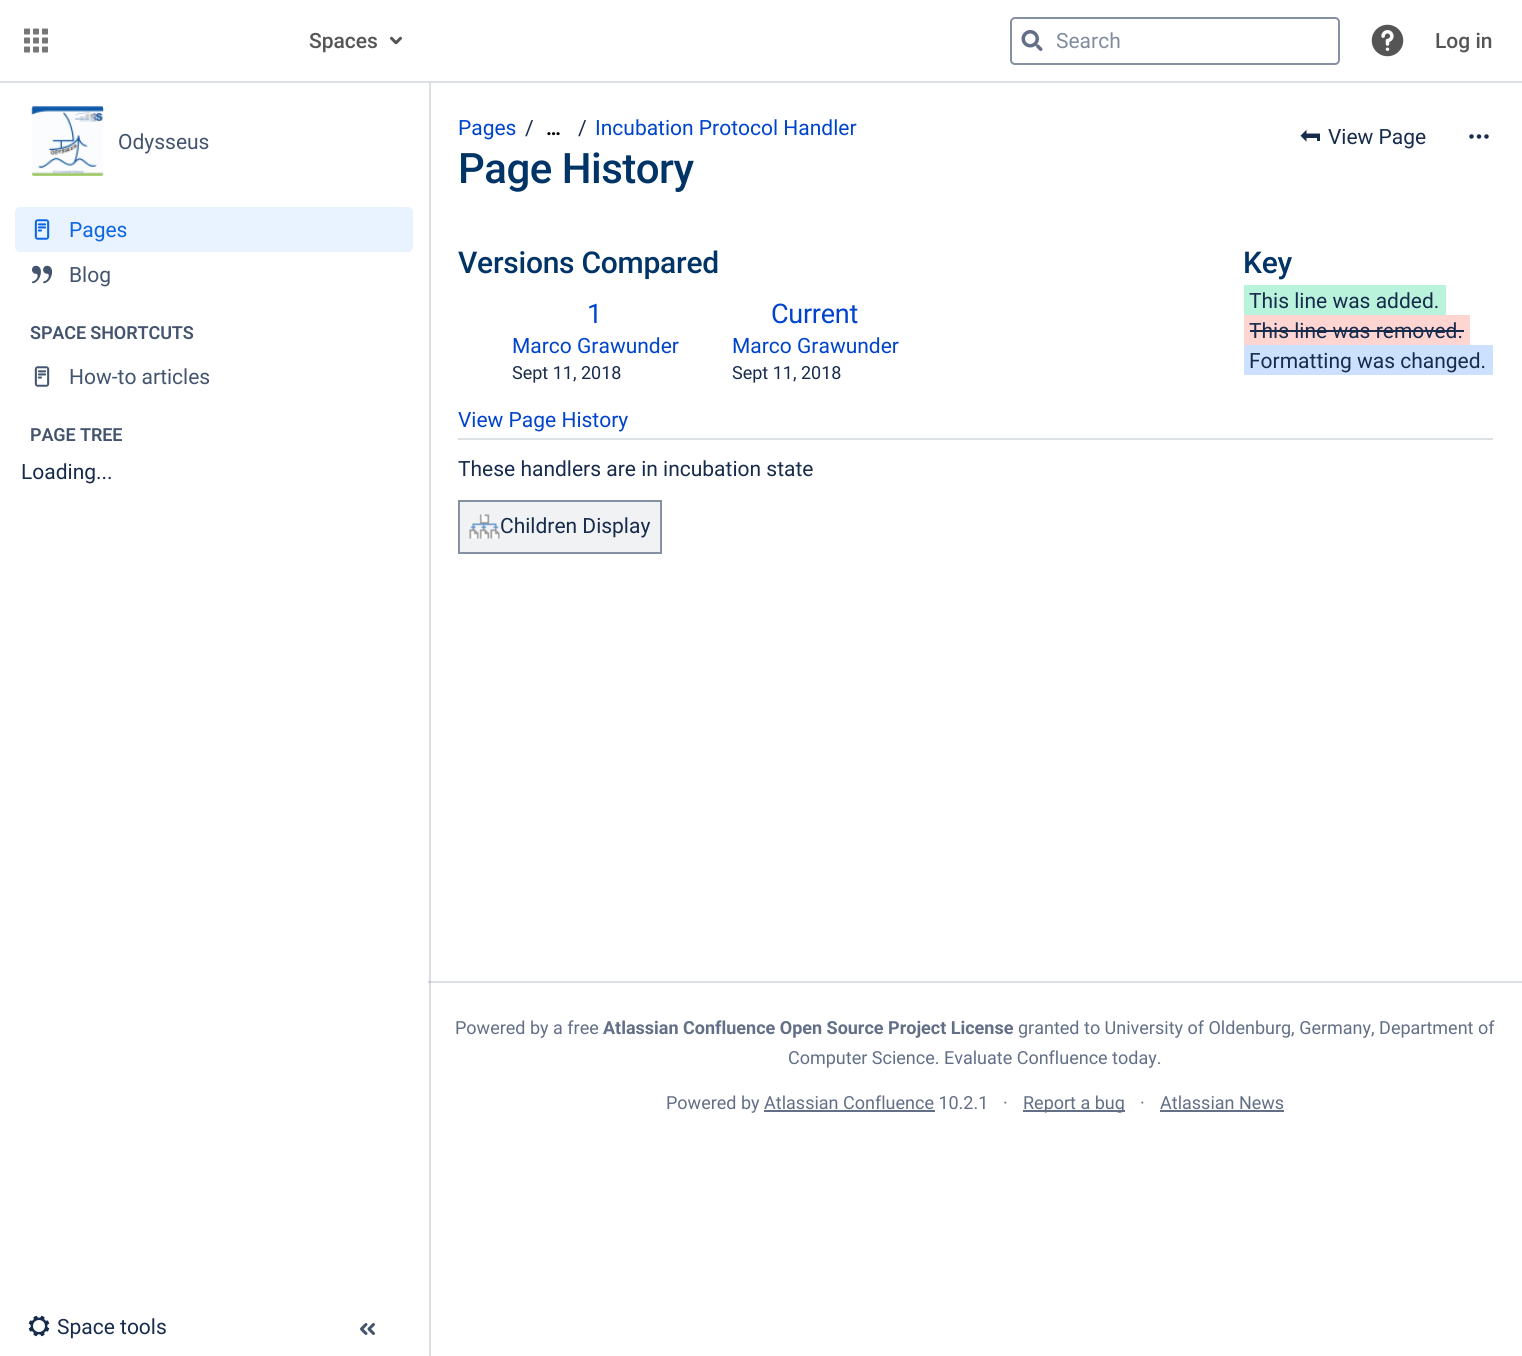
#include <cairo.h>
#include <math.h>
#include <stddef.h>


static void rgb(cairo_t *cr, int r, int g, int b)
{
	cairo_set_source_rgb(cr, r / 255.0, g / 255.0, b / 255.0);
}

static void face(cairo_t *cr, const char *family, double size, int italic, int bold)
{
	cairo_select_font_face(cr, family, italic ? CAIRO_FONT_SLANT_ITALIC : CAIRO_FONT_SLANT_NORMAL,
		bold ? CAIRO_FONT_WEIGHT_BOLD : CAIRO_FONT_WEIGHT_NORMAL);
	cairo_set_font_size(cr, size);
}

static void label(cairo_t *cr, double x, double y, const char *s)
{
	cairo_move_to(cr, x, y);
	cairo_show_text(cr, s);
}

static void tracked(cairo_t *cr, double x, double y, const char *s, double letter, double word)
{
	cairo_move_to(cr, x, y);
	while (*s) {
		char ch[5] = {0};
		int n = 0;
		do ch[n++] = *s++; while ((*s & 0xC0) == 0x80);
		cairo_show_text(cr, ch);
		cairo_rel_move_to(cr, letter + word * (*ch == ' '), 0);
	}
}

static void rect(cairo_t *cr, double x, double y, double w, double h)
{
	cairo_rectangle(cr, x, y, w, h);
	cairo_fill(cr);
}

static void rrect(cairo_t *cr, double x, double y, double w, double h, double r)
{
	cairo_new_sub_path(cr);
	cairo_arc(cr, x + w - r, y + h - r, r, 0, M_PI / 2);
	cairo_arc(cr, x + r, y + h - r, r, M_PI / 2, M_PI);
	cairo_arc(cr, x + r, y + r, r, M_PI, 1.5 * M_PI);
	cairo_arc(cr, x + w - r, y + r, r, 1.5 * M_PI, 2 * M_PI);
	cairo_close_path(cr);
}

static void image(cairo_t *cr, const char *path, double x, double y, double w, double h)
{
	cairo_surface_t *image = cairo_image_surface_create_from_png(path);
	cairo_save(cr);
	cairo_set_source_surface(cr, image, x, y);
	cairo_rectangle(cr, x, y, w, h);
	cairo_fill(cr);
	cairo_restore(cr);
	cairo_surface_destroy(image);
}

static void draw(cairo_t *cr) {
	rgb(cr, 255, 255, 255);
	cairo_paint(cr);
	rgb(cr, 221, 223, 229);
	rect(cr, 429, 83, 2, 1273);
	rgb(cr, 221, 224, 229);
	rect(cr, 0, 81, 1522, 2);
	image(cr, "image0.png", 24, 28, 24, 25);
	face(cr, "Roboto Medium", 21, 0, 0);
	rgb(cr, 85, 85, 85);
	label(cr, 309, 48, "Spaces");
	image(cr, "image1.png", 390, 36, 12, 9);
	rrect(cr, 1011, 18, 328, 46, 4);
	rgb(cr, 133, 144, 162);
	cairo_stroke(cr);
	image(cr, "image2.png", 1021, 30, 22, 21);
	face(cr, "Roboto", 21, 0, 0);
	rgb(cr, 129, 140, 158);
	label(cr, 1056, 48, "Search");
	image(cr, "image3.png", 1371, 24, 33, 33);
	face(cr, "Roboto Medium", 21, 0, 0);
	rgb(cr, 85, 85, 85);
	label(cr, 1435, 48, "Log in");
	image(cr, "image4.png", 31, 106, 73, 70);
	face(cr, "Roboto", 21, 0, 0);
	rgb(cr, 68, 84, 111);
	label(cr, 118, 149, "Odysseus");
	rgb(cr, 233, 242, 255);
	rrect(cr, 15, 207, 398, 45, 5);
	cairo_fill(cr);
	image(cr, "image5.png", 34, 219, 16, 21);
	rgb(cr, 12, 102, 228);
	label(cr, 69, 237, "Pages");
	image(cr, "image6.png", 31, 265, 22, 19);
	rgb(cr, 68, 84, 111);
	label(cr, 69, 282, "Blog");
	face(cr, "Roboto SemiBold", 18, 0, 0);
	tracked(cr, 30, 339, "SPACE SHORTCUTS", -0.1, 0);
	image(cr, "image7.png", 34, 366, 16, 21);
	face(cr, "Roboto", 21, 0, 0);
	label(cr, 69, 384, "How-to articles");
	face(cr, "Roboto SemiBold", 18, 0, 0);
	tracked(cr, 30, 441, "PAGE TREE", -0.1, 0);
	face(cr, "Roboto", 21, 0, 0);
	rgb(cr, 23, 43, 77);
	label(cr, 21, 479, "Loading...");
	image(cr, "image8.png", 28, 1315, 22, 22);
	label(cr, 57, 1334, "Space tools");
	image(cr, "image9.png", 360, 1323, 15, 12);
	rgb(cr, 221, 224, 229);
	rect(cr, 428, 981, 1094, 2);
	rgb(cr, 191, 197, 206);
	rect(cr, 429, 981, 2, 2);
	rgb(cr, 0, 68, 204);
	label(cr, 458, 135, "Pages");
	rgb(cr, 23, 43, 77);
	label(cr, 525, 135, "/");
	face(cr, "Roboto", 20, 0, 1);
	rgb(cr, 0, 0, 0);
	label(cr, 546, 135, "…");
	face(cr, "Roboto", 21, 0, 0);
	rgb(cr, 23, 43, 77);
	label(cr, 578, 135, "/");
	rgb(cr, 0, 68, 204);
	label(cr, 595, 135, "Incubation Protocol Handler");
	image(cr, "image10.png", 1300, 129, 20, 13);
	rgb(cr, 23, 43, 77);
	label(cr, 1328, 144, "View Page");
	image(cr, "image11.png", 1469, 134, 20, 5);
	face(cr, "Roboto Medium", 42, 0, 0);
	rgb(cr, 0, 51, 102);
	tracked(cr, 458, 183, "Page History", -0.5, 0);
	rgb(cr, 221, 224, 229);
	rect(cr, 458, 438, 1035, 2);
	face(cr, "Roboto Medium", 30, 0, 0);
	rgb(cr, 0, 51, 102);
	tracked(cr, 458, 273, "Versions Compared", -0.25, 0);
	tracked(cr, 1243, 273, "Key", -0.25, 0);
	rgb(cr, 186, 243, 219);
	rect(cr, 1244, 285, 202, 30);
	face(cr, "Roboto", 21, 0, 0);
	rgb(cr, 23, 43, 77);
	label(cr, 1249, 308, "This line was added.");
	rgb(cr, 255, 213, 210);
	rect(cr, 1244, 315, 226, 30);
	rgb(cr, 23, 43, 77);
	label(cr, 1249, 338, "This line was removed.");
	rect(cr, 1250, 330, 214, 2);
	rgb(cr, 204, 224, 255);
	rect(cr, 1244, 345, 249, 30);
	rgb(cr, 23, 43, 77);
	label(cr, 1249, 368, "Formatting was changed.");
	face(cr, "Roboto", 27, 0, 0);
	rgb(cr, 0, 68, 204);
	tracked(cr, 587, 323, "1", -0.25, 0);
	face(cr, "Roboto", 21, 0, 0);
	label(cr, 512, 353, "Marco Grawunder");
	face(cr, "Roboto", 18, 0, 0);
	rgb(cr, 23, 43, 77);
	label(cr, 512, 379, "Sept 11, 2018");
	face(cr, "Roboto", 27, 0, 0);
	rgb(cr, 0, 68, 204);
	tracked(cr, 771, 323, "Current", -0.25, 0);
	face(cr, "Roboto", 21, 0, 0);
	label(cr, 732, 353, "Marco Grawunder");
	face(cr, "Roboto", 18, 0, 0);
	rgb(cr, 23, 43, 77);
	label(cr, 732, 379, "Sept 11, 2018");
	face(cr, "Roboto", 21, 0, 0);
	rgb(cr, 0, 68, 204);
	label(cr, 458, 427, "View Page History");
	rgb(cr, 23, 43, 77);
	label(cr, 458, 476, "These handlers are in incubation state");
	rgb(cr, 241, 242, 244);
	cairo_rectangle(cr, 459, 501, 202, 52);
	cairo_fill_preserve(cr);
	rgb(cr, 133, 144, 162);
	cairo_stroke(cr);
	image(cr, "image12.png", 469, 514, 31, 25);
	rgb(cr, 23, 43, 77);
	label(cr, 500, 533, "Children Display");
	face(cr, "Roboto", 18, 0, 0);
	rgb(cr, 98, 111, 134);
	label(cr, 455, 1034, "Powered by a free");
	face(cr, "Roboto", 18, 0, 1);
	label(cr, 603, 1034, "Atlassian Confluence Open Source Project License");
	face(cr, "Roboto", 18, 0, 0);
	label(cr, 1018, 1034, "granted to University of Oldenburg, Germany, Department of");
	label(cr, 788, 1064, "Computer Science. Evaluate Confluence today.");
	label(cr, 666, 1109, "Powered by Atlassian Confluence 10.2.1");
	label(cr, 1003, 1109, "·");
	rect(cr, 764, 1110, 171, 2);
	rect(cr, 1023, 1110, 102, 2);
	label(cr, 1023, 1109, "Report a bug");
	label(cr, 1140, 1109, "·");
	label(cr, 1160, 1109, "Atlassian News");
	rect(cr, 1160, 1110, 124, 2);
}

int main(void) {
	cairo_surface_t *surface = cairo_image_surface_create(CAIRO_FORMAT_RGB24, 1522, 1356);
	cairo_t *cr = cairo_create(surface);
	cairo_font_options_t *options = cairo_font_options_create();
	cairo_font_options_set_hint_metrics(options, CAIRO_HINT_METRICS_OFF);
	cairo_font_options_set_hint_style(options, CAIRO_HINT_STYLE_NONE);
	cairo_set_font_options(cr, options);
	cairo_set_miter_limit(cr, 4);
	draw(cr);
	cairo_surface_write_to_png(surface, "render.png");
	cairo_font_options_destroy(options);
	cairo_destroy(cr);
	cairo_surface_destroy(surface);
	return 0;
}
